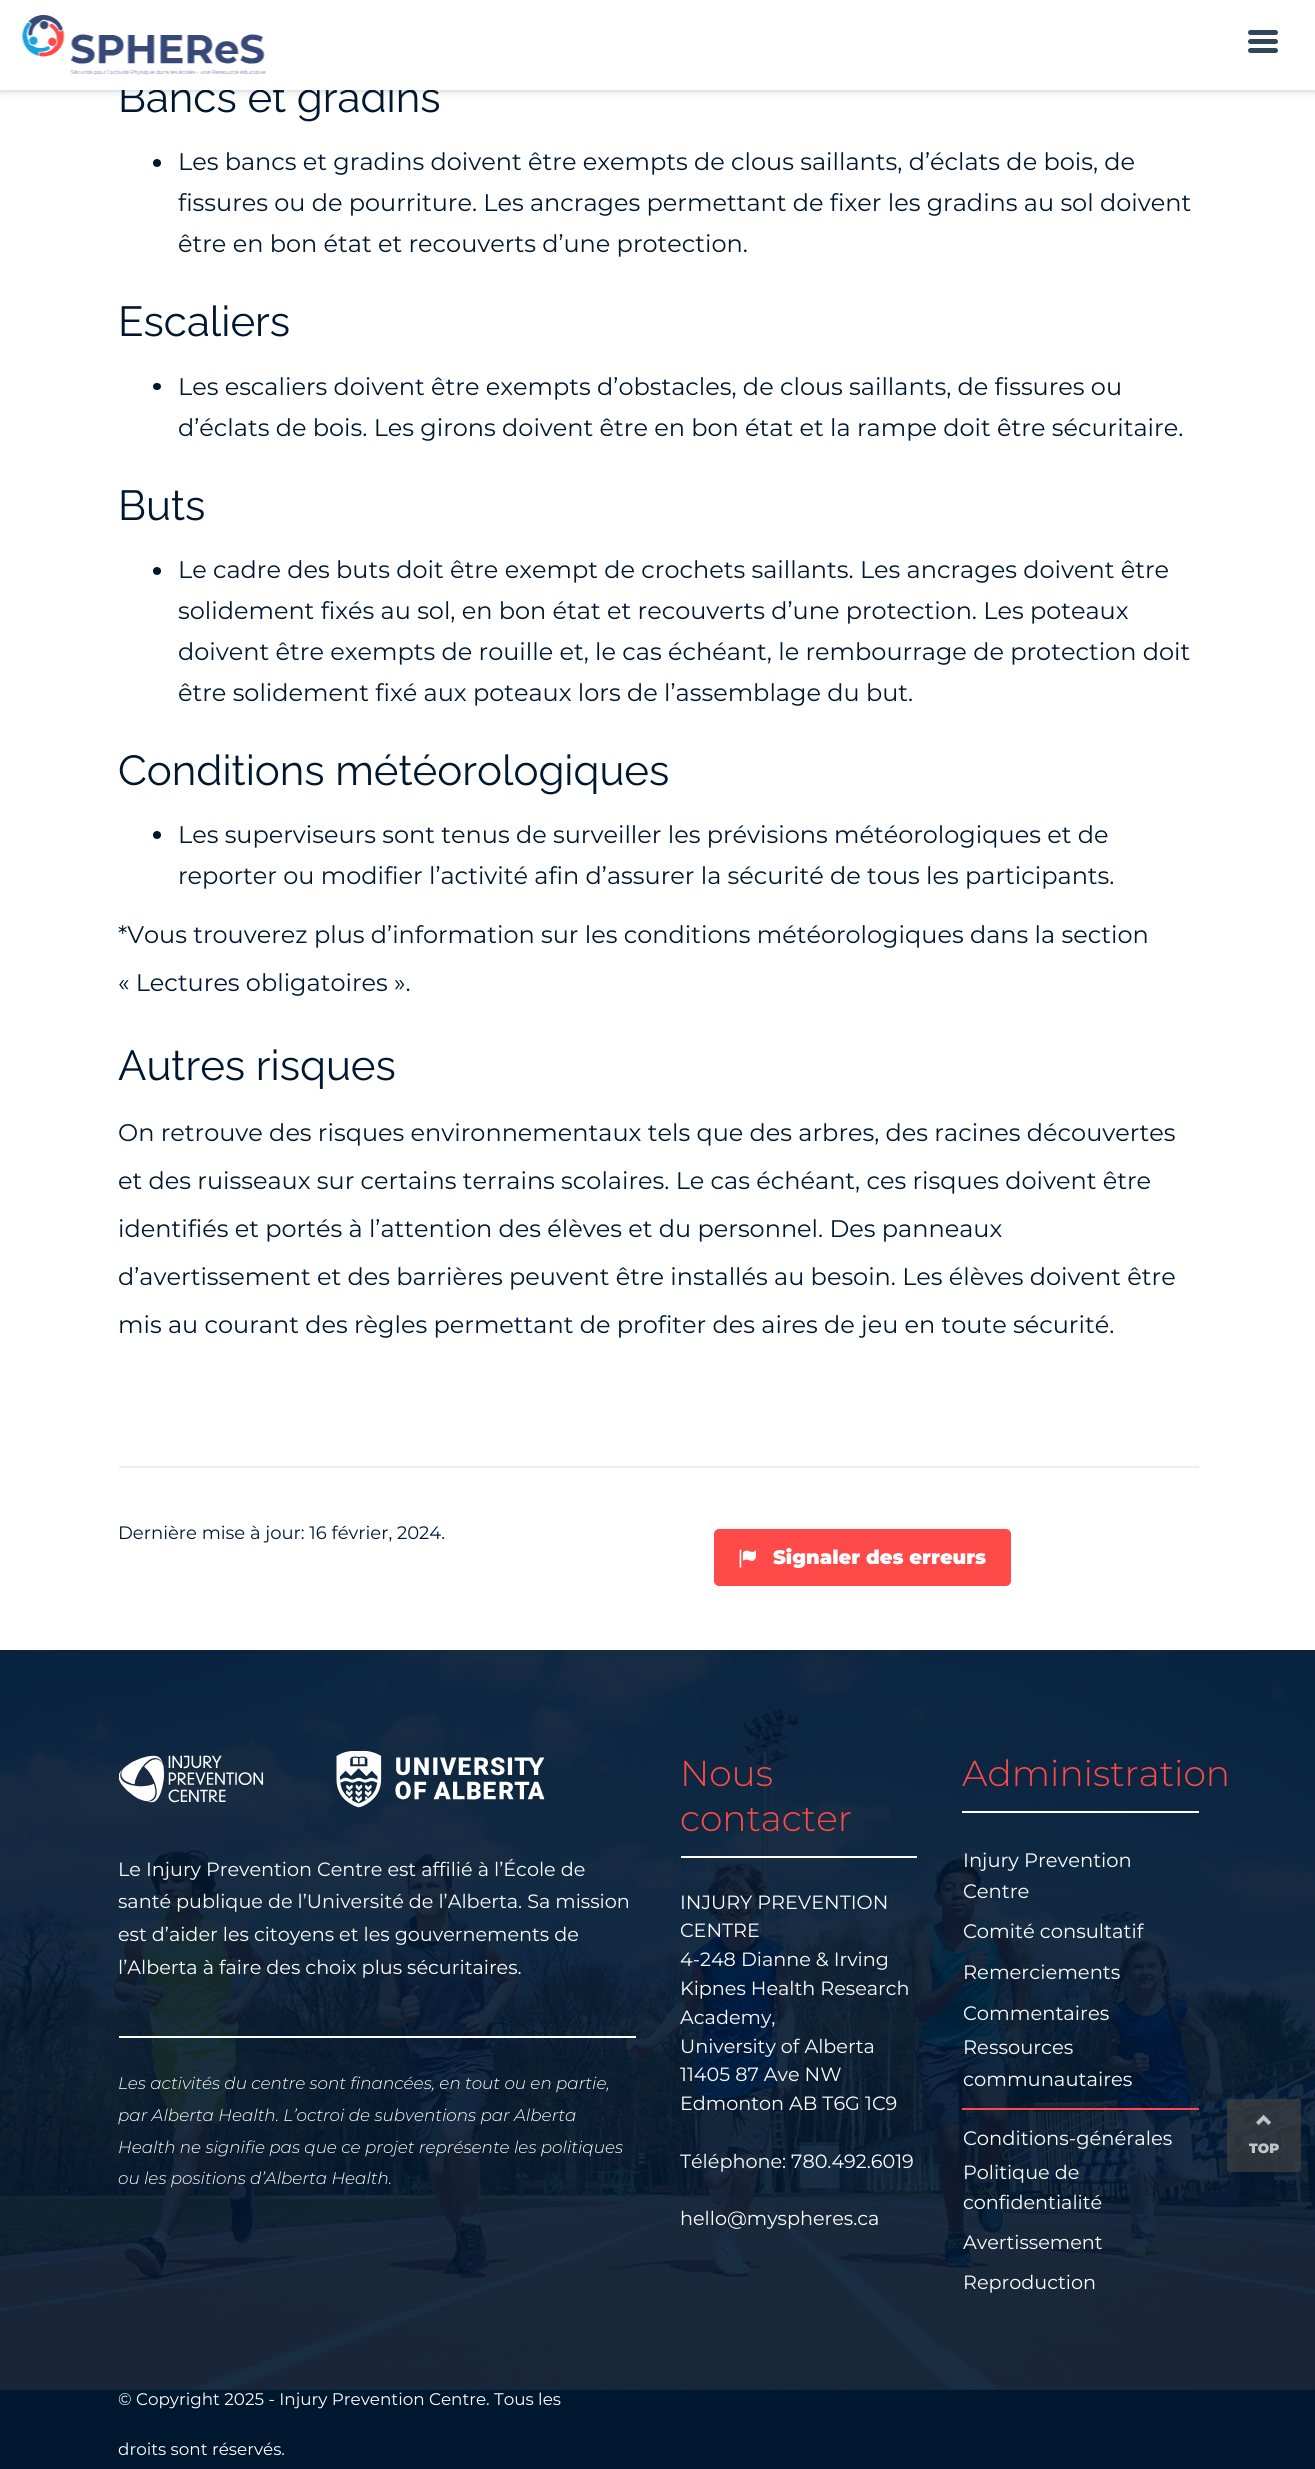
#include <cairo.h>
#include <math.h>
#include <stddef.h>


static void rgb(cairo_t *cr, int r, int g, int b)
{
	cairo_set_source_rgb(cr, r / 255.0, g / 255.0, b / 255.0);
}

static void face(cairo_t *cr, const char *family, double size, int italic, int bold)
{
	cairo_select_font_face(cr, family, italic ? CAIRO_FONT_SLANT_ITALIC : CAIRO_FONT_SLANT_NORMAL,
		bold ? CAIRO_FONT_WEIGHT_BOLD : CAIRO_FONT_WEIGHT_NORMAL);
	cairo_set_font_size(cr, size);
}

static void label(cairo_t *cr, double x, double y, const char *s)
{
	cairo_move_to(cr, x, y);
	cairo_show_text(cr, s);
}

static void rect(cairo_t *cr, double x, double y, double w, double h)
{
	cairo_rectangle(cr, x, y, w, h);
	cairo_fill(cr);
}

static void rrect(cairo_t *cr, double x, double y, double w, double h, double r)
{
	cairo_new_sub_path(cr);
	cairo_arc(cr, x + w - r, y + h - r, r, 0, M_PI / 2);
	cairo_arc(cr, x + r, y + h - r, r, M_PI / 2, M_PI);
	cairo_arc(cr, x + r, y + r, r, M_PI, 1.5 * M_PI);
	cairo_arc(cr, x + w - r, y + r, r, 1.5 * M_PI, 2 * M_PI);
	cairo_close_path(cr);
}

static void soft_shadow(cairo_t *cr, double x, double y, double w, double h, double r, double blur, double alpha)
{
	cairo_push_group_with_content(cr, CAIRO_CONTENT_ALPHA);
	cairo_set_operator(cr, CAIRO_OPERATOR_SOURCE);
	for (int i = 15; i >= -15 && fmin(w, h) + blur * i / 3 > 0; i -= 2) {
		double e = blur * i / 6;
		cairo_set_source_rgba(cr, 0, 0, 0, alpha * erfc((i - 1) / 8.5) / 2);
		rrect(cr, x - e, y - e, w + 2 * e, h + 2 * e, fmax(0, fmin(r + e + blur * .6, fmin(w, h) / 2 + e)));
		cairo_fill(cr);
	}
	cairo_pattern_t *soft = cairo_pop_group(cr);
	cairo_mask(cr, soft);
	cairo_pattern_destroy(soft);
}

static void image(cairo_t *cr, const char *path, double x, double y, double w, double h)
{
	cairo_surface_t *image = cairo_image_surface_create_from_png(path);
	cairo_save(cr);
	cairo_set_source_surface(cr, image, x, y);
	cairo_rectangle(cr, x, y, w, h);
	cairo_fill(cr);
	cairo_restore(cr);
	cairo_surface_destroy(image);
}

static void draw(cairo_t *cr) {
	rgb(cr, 255, 255, 255);
	cairo_paint(cr);
	rgb(cr, 0, 0, 0);
	soft_shadow(cr, 0, 0, 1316, 90, 0, 4, 0.25);
	face(cr, "Raleway Thin", 42, 0, 0);
	rgb(cr, 0, 23, 48);
	label(cr, 118, 112, "Bancs et gradins");
	rgb(cr, 255, 255, 255);
	rect(cr, 0, 0, 1315, 90);
	image(cr, "image0.png", 22, 15, 244, 60);
	rgb(cr, 51, 69, 89);
	rrect(cr, 1248, 30, 30, 5, 2.5);
	cairo_fill(cr);
	rrect(cr, 1248, 39, 30, 5, 2.5);
	cairo_fill(cr);
	rrect(cr, 1248, 48, 30, 5, 2.5);
	cairo_fill(cr);
	rgb(cr, 0, 23, 48);
	cairo_arc(cr, 157, 163, 4, 0, 2 * M_PI);
	cairo_fill(cr);
	face(cr, "Montserrat", 24, 0, 0);
	label(cr, 178, 170, "Les bancs et gradins doivent être exempts de clous saillants, d’éclats de bois, de");
	label(cr, 178, 211, "fissures ou de pourriture. Les ancrages permettant de fixer les gradins au sol doivent");
	label(cr, 178, 252, "être en bon état et recouverts d’une protection.");
	face(cr, "Raleway Thin", 42, 0, 0);
	label(cr, 118, 336, "Escaliers");
	rrect(cr, 153, 383, 8, 7, 3.5);
	cairo_fill(cr);
	face(cr, "Montserrat", 24, 0, 0);
	label(cr, 178, 395, "Les escaliers doivent être exempts d’obstacles, de clous saillants, de fissures ou");
	label(cr, 178, 436, "d’éclats de bois. Les girons doivent être en bon état et la rampe doit être sécuritaire.");
	face(cr, "Raleway Thin", 42, 0, 0);
	label(cr, 118, 520, "Buts");
	cairo_new_path(cr);
	cairo_arc(cr, 157, 571, 4, 0, 2 * M_PI);
	cairo_fill(cr);
	face(cr, "Montserrat", 24, 0, 0);
	label(cr, 178, 578, "Le cadre des buts doit être exempt de crochets saillants. Les ancrages doivent être");
	label(cr, 178, 619, "solidement fixés au sol, en bon état et recouverts d’une protection. Les poteaux");
	label(cr, 178, 660, "doivent être exempts de rouille et, le cas échéant, le rembourrage de protection doit");
	label(cr, 178, 701, "être solidement fixé aux poteaux lors de l’assemblage du but.");
	face(cr, "Raleway Thin", 42, 0, 0);
	label(cr, 118, 785, "Conditions météorologiques");
	cairo_new_path(cr);
	cairo_arc(cr, 157, 835, 4, 0, 2 * M_PI);
	cairo_fill(cr);
	face(cr, "Montserrat", 24, 0, 0);
	label(cr, 178, 843, "Les superviseurs sont tenus de surveiller les prévisions météorologiques et de");
	label(cr, 178, 884, "reporter ou modifier l’activité afin d’assurer la sécurité de tous les participants.");
	label(cr, 118, 943, "*Vous trouverez plus d’information sur les conditions météorologiques dans la section");
	label(cr, 118, 991, "« Lectures obligatoires ».");
	face(cr, "Raleway Thin", 42, 0, 0);
	label(cr, 118, 1080, "Autres risques");
	face(cr, "Montserrat", 24, 0, 0);
	label(cr, 118, 1141, "On retrouve des risques environnementaux tels que des arbres, des racines découvertes");
	label(cr, 118, 1189, "et des ruisseaux sur certains terrains scolaires. Le cas échéant, ces risques doivent être");
	label(cr, 118, 1237, "identifiés et portés à l’attention des élèves et du personnel. Des panneaux");
	label(cr, 118, 1285, "d’avertissement et des barrières peuvent être installés au besoin. Les élèves doivent être");
	label(cr, 118, 1333, "mis au courant des règles permettant de profiter des aires de jeu en toute sécurité.");
	rgb(cr, 238, 238, 238);
	rect(cr, 119, 1466, 1080, 2);
	face(cr, "Montserrat", 18, 0, 0);
	rgb(cr, 0, 23, 48);
	label(cr, 118, 1539, "Dernière mise à jour: 16 février, 2024.");
	rgb(cr, 254, 74, 73);
	rrect(cr, 714, 1529, 297, 57, 5);
	cairo_fill(cr);
	image(cr, "image1.png", 739, 1549, 17, 19);
	face(cr, "Montserrat Black", 19.5, 0, 0);
	rgb(cr, 255, 255, 255);
	label(cr, 773, 1564, "Signaler des erreurs");
	rgb(cr, 7, 42, 64);
	rect(cr, 0, 2389, 1315, 1);
	image(cr, "image2.png", 0, 1650, 1315, 740);
	image(cr, "image3.png", 119, 1751, 426, 57);
	face(cr, "Montserrat", 19.2, 0, 0);
	rgb(cr, 255, 255, 255);
	label(cr, 118, 1876, "Le Injury Prevention Centre est affilié à l’École de");
	label(cr, 118, 1908, "santé publique de l’Université de l’Alberta. Sa mission");
	label(cr, 118, 1941, "est d’aider les citoyens et les gouvernements de");
	label(cr, 118, 1974, "l’Alberta à faire des choix plus sécuritaires.");
	rect(cr, 119, 2036, 517, 2);
	face(cr, "Montserrat Light", 16.8, 1, 0);
	label(cr, 118, 2089, "Les activités du centre sont financées, en tout ou en partie,");
	label(cr, 118, 2121, "par Alberta Health. L’octroi de subventions par Alberta");
	label(cr, 118, 2153, "Health ne signifie pas que ce projet représente les politiques");
	label(cr, 118, 2184, "ou les positions d’Alberta Health.");
	face(cr, "Montserrat Light", 36, 0, 0);
	rgb(cr, 254, 74, 73);
	label(cr, 680, 1786, "Nous");
	label(cr, 680, 1831, "contacter");
	rgb(cr, 255, 255, 255);
	rect(cr, 681, 1856, 236, 2);
	face(cr, "Montserrat", 19.2, 0, 0);
	label(cr, 680, 1909, "INJURY PREVENTION");
	label(cr, 680, 1937, "CENTRE");
	label(cr, 680, 1966, "4-248 Dianne & Irving");
	label(cr, 680, 1995, "Kipnes Health Research");
	label(cr, 680, 2024, "Academy,");
	label(cr, 680, 2053, "University of Alberta");
	label(cr, 680, 2081, "11405 87 Ave NW");
	label(cr, 680, 2110, "Edmonton AB T6G 1C9");
	label(cr, 680, 2168, "Téléphone: 780.492.6019");
	label(cr, 680, 2225, "hello@myspheres.ca");
	face(cr, "Montserrat Light", 36, 0, 0);
	rgb(cr, 254, 74, 73);
	label(cr, 962, 1786, "Administration");
	rgb(cr, 255, 255, 255);
	rect(cr, 962, 1811, 237, 2);
	face(cr, "Montserrat", 19.5, 0, 0);
	label(cr, 963, 1867, "Injury Prevention");
	label(cr, 963, 1898, "Centre");
	label(cr, 963, 1938, "Comité consultatif");
	label(cr, 963, 1979, "Remerciements");
	label(cr, 963, 2020, "Commentaires");
	label(cr, 963, 2054, "Ressources");
	label(cr, 963, 2086, "communautaires");
	rgb(cr, 254, 74, 73);
	rect(cr, 962, 2108, 237, 2);
	rgb(cr, 255, 255, 255);
	label(cr, 963, 2145, "Conditions-générales");
	face(cr, "Montserrat", 19.2, 0, 0);
	label(cr, 963, 2179, "Politique de");
	label(cr, 963, 2209, "confidentialité");
	label(cr, 963, 2249, "Avertissement");
	label(cr, 963, 2289, "Reproduction");
	rgb(cr, 0, 23, 48);
	rect(cr, 0, 2390, 1315, 79);
	face(cr, "Montserrat", 16.8, 0, 0);
	rgb(cr, 255, 255, 255);
	label(cr, 118, 2405, "© Copyright 2025 - Injury Prevention Centre. Tous les");
	label(cr, 118, 2455, "droits sont réservés.");
	cairo_set_source_rgba(cr, 0.251, 0.251, 0.251, 0.7);
	rrect(cr, 1227, 2099, 74, 73, 3);
	cairo_fill(cr);
	image(cr, "image4.png", 1256, 2114, 16, 11);
	face(cr, "Montserrat Black", 13.5, 0, 0);
	rgb(cr, 193, 195, 197);
	label(cr, 1249, 2153, "TOP");
}

int main(void) {
	cairo_surface_t *surface = cairo_image_surface_create(CAIRO_FORMAT_RGB24, 1315, 2469);
	cairo_t *cr = cairo_create(surface);
	cairo_font_options_t *options = cairo_font_options_create();
	cairo_font_options_set_hint_metrics(options, CAIRO_HINT_METRICS_OFF);
	cairo_font_options_set_hint_style(options, CAIRO_HINT_STYLE_NONE);
	cairo_set_font_options(cr, options);
	cairo_set_miter_limit(cr, 4);
	draw(cr);
	cairo_surface_write_to_png(surface, "render.png");
	cairo_font_options_destroy(options);
	cairo_destroy(cr);
	cairo_surface_destroy(surface);
	return 0;
}
